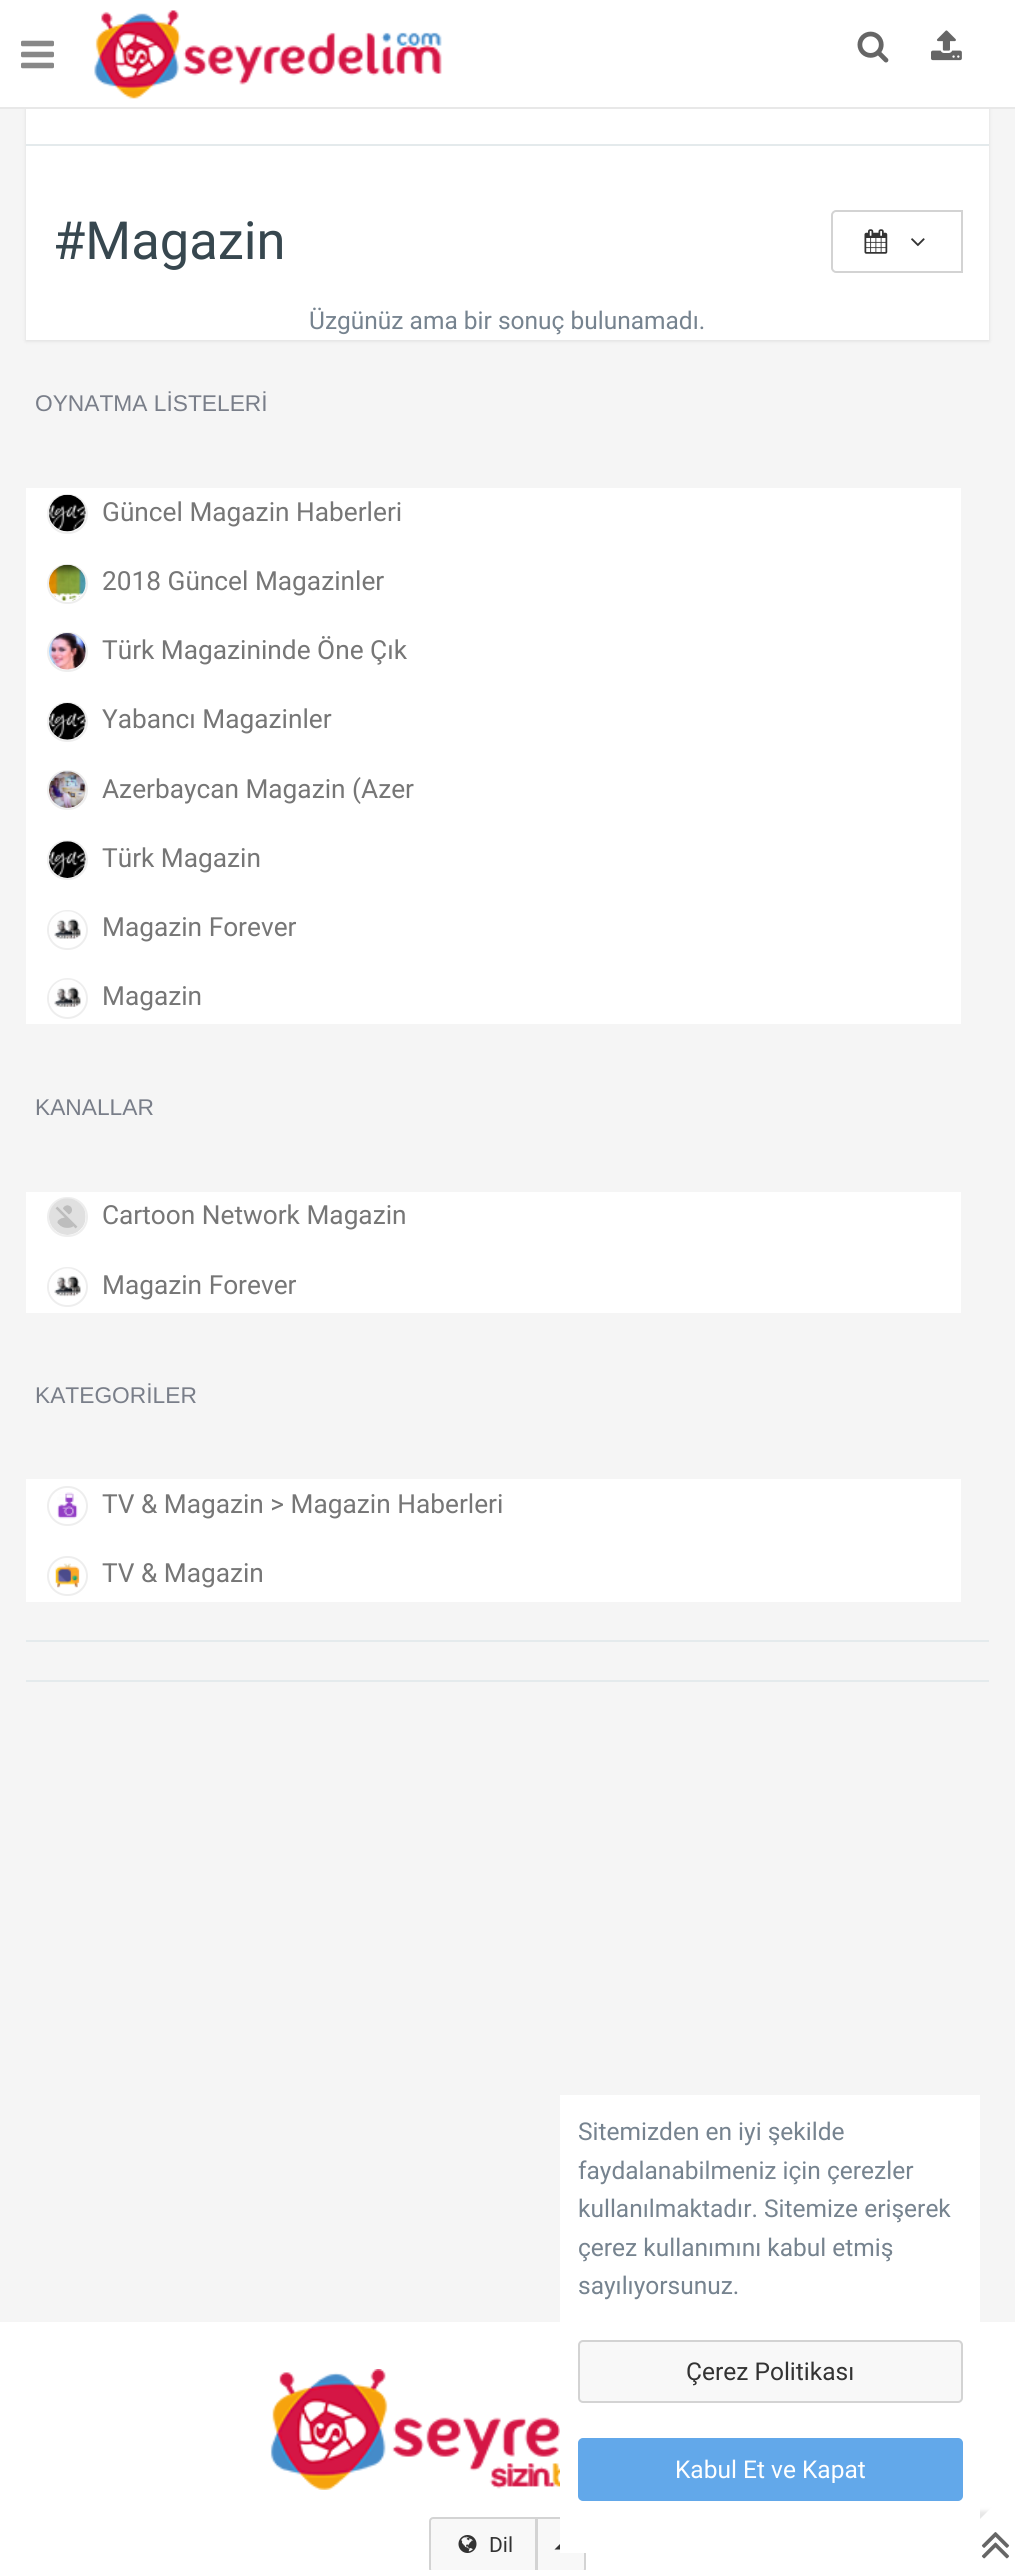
#include <cairo.h>
#include <math.h>
#include <stddef.h>


static void rgb(cairo_t *cr, int r, int g, int b)
{
	cairo_set_source_rgb(cr, r / 255.0, g / 255.0, b / 255.0);
}

static void face(cairo_t *cr, const char *family, double size, int italic, int bold)
{
	cairo_select_font_face(cr, family, italic ? CAIRO_FONT_SLANT_ITALIC : CAIRO_FONT_SLANT_NORMAL,
		bold ? CAIRO_FONT_WEIGHT_BOLD : CAIRO_FONT_WEIGHT_NORMAL);
	cairo_set_font_size(cr, size);
}

static void label(cairo_t *cr, double x, double y, const char *s)
{
	cairo_move_to(cr, x, y);
	cairo_show_text(cr, s);
}

static void rect(cairo_t *cr, double x, double y, double w, double h)
{
	cairo_rectangle(cr, x, y, w, h);
	cairo_fill(cr);
}

static void rrect(cairo_t *cr, double x, double y, double w, double h, double r)
{
	cairo_new_sub_path(cr);
	cairo_arc(cr, x + w - r, y + h - r, r, 0, M_PI / 2);
	cairo_arc(cr, x + r, y + h - r, r, M_PI / 2, M_PI);
	cairo_arc(cr, x + r, y + r, r, M_PI, 1.5 * M_PI);
	cairo_arc(cr, x + w - r, y + r, r, 1.5 * M_PI, 2 * M_PI);
	cairo_close_path(cr);
}

static void soft_shadow(cairo_t *cr, double x, double y, double w, double h, double r, double blur, double alpha)
{
	cairo_push_group_with_content(cr, CAIRO_CONTENT_ALPHA);
	cairo_set_operator(cr, CAIRO_OPERATOR_SOURCE);
	for (int i = 15; i >= -15 && fmin(w, h) + blur * i / 3 > 0; i -= 2) {
		double e = blur * i / 6;
		cairo_set_source_rgba(cr, 0, 0, 0, alpha * erfc((i - 1) / 8.5) / 2);
		rrect(cr, x - e, y - e, w + 2 * e, h + 2 * e, fmax(0, fmin(r + e + blur * .6, fmin(w, h) / 2 + e)));
		cairo_fill(cr);
	}
	cairo_pattern_t *soft = cairo_pop_group(cr);
	cairo_mask(cr, soft);
	cairo_pattern_destroy(soft);
}

static void image(cairo_t *cr, const char *path, double x, double y, double w, double h)
{
	cairo_surface_t *image = cairo_image_surface_create_from_png(path);
	cairo_save(cr);
	cairo_set_source_surface(cr, image, x, y);
	cairo_rectangle(cr, x, y, w, h);
	cairo_fill(cr);
	cairo_restore(cr);
	cairo_surface_destroy(image);
}

static void draw(cairo_t *cr) {
	rgb(cr, 245, 245, 245);
	cairo_paint(cr);
	rgb(cr, 0, 0, 0);
	soft_shadow(cr, 26, 105, 963, 236, 0, 2, 0.1);
	rgb(cr, 255, 255, 255);
	rect(cr, 0, 0, 1015, 107);
	rgb(cr, 232, 232, 232);
	rect(cr, 0, 107, 1015, 2);
	image(cr, "image0.png", 21, 40, 33, 29);
	image(cr, "image1.png", 94, 10, 348, 89);
	image(cr, "image2.png", 857, 31, 32, 32);
	image(cr, "image3.png", 931, 30, 31, 31);
	rgb(cr, 255, 255, 255);
	rect(cr, 26, 109, 963, 231);
	rgb(cr, 228, 234, 236);
	rect(cr, 26, 144, 963, 2);
	face(cr, "Roboto", 52.5, 0, 0);
	rgb(cr, 55, 71, 79);
	label(cr, 53, 259, "#Magazin");
	cairo_new_path(cr);
	cairo_move_to(cr, 836, 211);
	cairo_line_to(cr, 962, 211);
	cairo_line_to(cr, 962, 272);
	cairo_line_to(cr, 836, 272);
	cairo_curve_to(cr, 834, 272, 832, 270, 832, 268);
	cairo_line_to(cr, 832, 215);
	cairo_curve_to(cr, 832, 213, 834, 211, 836, 211);
	cairo_close_path(cr);
	rgb(cr, 211, 211, 211);
	cairo_stroke(cr);
	image(cr, "image4.png", 864, 229, 24, 25);
	image(cr, "image5.png", 911, 238, 14, 9);
	face(cr, "Roboto", 24.5, 0, 0);
	rgb(cr, 118, 131, 143);
	label(cr, 309, 329, "Üzgünüz ama bir sonuç bulunamadı.");
	face(cr, "Liberation Sans", 22.75, 0, 0);
	rgb(cr, 121, 126, 137);
	label(cr, 35, 411, "OYNATMA LİSTELERİ");
	rgb(cr, 255, 255, 255);
	rect(cr, 26, 488, 935, 536);
	rrect(cr, 48, 495, 39, 38, 19);
	rgb(cr, 238, 238, 238);
	cairo_stroke(cr);
	image(cr, "image6.png", 49, 494, 37, 38);
	face(cr, "Roboto", 26.25, 0, 0);
	rgb(cr, 118, 118, 118);
	label(cr, 102, 521, "Güncel Magazin Haberleri");
	rrect(cr, 48, 565, 39, 38, 19);
	rgb(cr, 238, 238, 238);
	cairo_stroke(cr);
	image(cr, "image7.png", 49, 564, 37, 37);
	rgb(cr, 118, 118, 118);
	label(cr, 102, 590, "2018 Güncel Magazinler");
	rrect(cr, 48, 633, 39, 38, 19);
	rgb(cr, 238, 238, 238);
	cairo_stroke(cr);
	image(cr, "image8.png", 49, 633, 37, 37);
	rgb(cr, 118, 118, 118);
	label(cr, 102, 659, "Türk Magazininde Öne Çık");
	rrect(cr, 48, 703, 39, 38, 19);
	rgb(cr, 238, 238, 238);
	cairo_stroke(cr);
	image(cr, "image9.png", 49, 703, 37, 37);
	rgb(cr, 118, 118, 118);
	label(cr, 102, 728, "Yabancı Magazinler");
	rrect(cr, 48, 771, 39, 38, 19);
	rgb(cr, 238, 238, 238);
	cairo_stroke(cr);
	image(cr, "image10.png", 49, 771, 37, 37);
	rgb(cr, 118, 118, 118);
	label(cr, 102, 798, "Azerbaycan Magazin (Azer");
	rrect(cr, 48, 841, 39, 38, 19);
	rgb(cr, 238, 238, 238);
	cairo_stroke(cr);
	image(cr, "image11.png", 49, 841, 37, 37);
	rgb(cr, 118, 118, 118);
	label(cr, 102, 867, "Türk Magazin");
	rrect(cr, 48, 911, 39, 38, 19);
	rgb(cr, 238, 238, 238);
	cairo_stroke(cr);
	image(cr, "image12.png", 49, 911, 32, 28);
	rgb(cr, 118, 118, 118);
	label(cr, 102, 936, "Magazin Forever");
	cairo_new_path(cr);
	cairo_arc(cr, 67.5, 998.5, 19.5, 0, 2 * M_PI);
	rgb(cr, 238, 238, 238);
	cairo_stroke(cr);
	image(cr, "image13.png", 49, 979, 34, 28);
	rgb(cr, 118, 118, 118);
	label(cr, 102, 1005, "Magazin");
	face(cr, "Liberation Sans", 22.75, 0, 0);
	rgb(cr, 121, 126, 137);
	label(cr, 35, 1115, "KANALLAR");
	rgb(cr, 255, 255, 255);
	rect(cr, 26, 1192, 935, 121);
	rrect(cr, 48, 1198, 39, 38, 19);
	rgb(cr, 238, 238, 238);
	cairo_stroke(cr);
	image(cr, "image14.png", 49, 1198, 37, 37);
	face(cr, "Roboto", 26.25, 0, 0);
	rgb(cr, 118, 118, 118);
	label(cr, 102, 1224, "Cartoon Network Magazin");
	rrect(cr, 48, 1268, 39, 38, 19);
	rgb(cr, 238, 238, 238);
	cairo_stroke(cr);
	image(cr, "image15.png", 49, 1268, 32, 29);
	rgb(cr, 118, 118, 118);
	label(cr, 102, 1294, "Magazin Forever");
	face(cr, "Liberation Sans", 22.75, 0, 0);
	rgb(cr, 121, 126, 137);
	label(cr, 35, 1403, "KATEGORİLER");
	rgb(cr, 255, 255, 255);
	rect(cr, 26, 1479, 935, 123);
	rrect(cr, 48, 1487, 39, 38, 19);
	rgb(cr, 238, 238, 238);
	cairo_stroke(cr);
	image(cr, "image16.png", 57, 1492, 21, 27);
	face(cr, "Roboto", 26.25, 0, 0);
	rgb(cr, 118, 118, 118);
	label(cr, 102, 1513, "TV & Magazin > Magazin Haberleri");
	rrect(cr, 48, 1557, 39, 38, 19);
	rgb(cr, 238, 238, 238);
	cairo_stroke(cr);
	image(cr, "image17.png", 55, 1563, 25, 25);
	rgb(cr, 118, 118, 118);
	label(cr, 102, 1582, "TV & Magazin");
	rgb(cr, 228, 234, 236);
	rect(cr, 26, 1640, 963, 2);
	rect(cr, 26, 1680, 963, 2);
	rgb(cr, 255, 255, 255);
	rect(cr, 0, 2322, 1015, 248);
	rgb(cr, 248, 248, 248);
	rect(cr, 538, 2519, 48, 51);
	cairo_new_path(cr);
	cairo_move_to(cr, 433, 2518);
	cairo_line_to(cr, 536, 2518);
	cairo_line_to(cr, 536, 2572);
	cairo_line_to(cr, 433, 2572);
	cairo_curve_to(cr, 431.5, 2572, 430, 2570.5, 430, 2569);
	cairo_line_to(cr, 430, 2521);
	cairo_curve_to(cr, 430, 2519.5, 431.5, 2518, 433, 2518);
	cairo_close_path(cr);
	cairo_fill_preserve(cr);
	rgb(cr, 211, 211, 211);
	cairo_stroke(cr);
	cairo_new_path(cr);
	cairo_move_to(cr, 537, 2518);
	cairo_line_to(cr, 582, 2518);
	cairo_curve_to(cr, 583.5, 2518, 585, 2519.5, 585, 2521);
	cairo_line_to(cr, 585, 2569);
	cairo_curve_to(cr, 585, 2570.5, 583.5, 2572, 582, 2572);
	cairo_line_to(cr, 537, 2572);
	cairo_close_path(cr);
	cairo_stroke(cr);
	rgb(cr, 51, 51, 51);
	cairo_new_path(cr);
	cairo_move_to(cr, 568.5, 2549.5);
	cairo_line_to(cr, 554.5, 2549.5);
	cairo_line_to(cr, 561.5, 2542.5);
	cairo_close_path(cr);
	cairo_fill(cr);
	rgb(cr, 0, 0, 0);
	soft_shadow(cr, 954, 2511, 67, 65, 0, 2, 0.1);
	rgb(cr, 255, 255, 255);
	cairo_new_path(cr);
	cairo_move_to(cr, 1015, 2484);
	cairo_line_to(cr, 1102, 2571);
	cairo_line_to(cr, 1015, 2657);
	cairo_line_to(cr, 928, 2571);
	cairo_close_path(cr);
	cairo_fill(cr);
	rect(cr, 560, 2095, 420, 458);
	face(cr, "Roboto", 24.5, 0, 0);
	rgb(cr, 118, 131, 143);
	label(cr, 578, 2140, "Sitemizden en iyi şekilde");
	label(cr, 578, 2179, "faydalanabilmeniz için çerezler");
	label(cr, 578, 2217, "kullanılmaktadır. Sitemize erişerek");
	label(cr, 578, 2256, "çerez kullanımını kabul etmiş");
	label(cr, 578, 2294, "sayılıyorsunuz.");
	rgb(cr, 248, 248, 248);
	rrect(cr, 579, 2341, 383, 61, 4);
	cairo_fill_preserve(cr);
	rgb(cr, 211, 211, 211);
	cairo_stroke(cr);
	rgb(cr, 51, 51, 51);
	label(cr, 686, 2380, "Çerez Politikası");
	rgb(cr, 98, 168, 234);
	rrect(cr, 579, 2439, 383, 61, 4);
	cairo_fill_preserve(cr);
	cairo_stroke(cr);
	rgb(cr, 255, 255, 255);
	label(cr, 675, 2478, "Kabul Et ve Kapat");
	image(cr, "image18.png", 270, 2369, 290, 121);
	image(cr, "image19.png", 458, 2535, 19, 18);
	face(cr, "Roboto", 21, 0, 0);
	rgb(cr, 51, 51, 51);
	label(cr, 489, 2552, "Dil");
	image(cr, "image20.png", 981, 2532, 29, 27);
}

int main(void) {
	cairo_surface_t *surface = cairo_image_surface_create(CAIRO_FORMAT_RGB24, 1015, 2570);
	cairo_t *cr = cairo_create(surface);
	cairo_font_options_t *options = cairo_font_options_create();
	cairo_font_options_set_hint_metrics(options, CAIRO_HINT_METRICS_OFF);
	cairo_font_options_set_hint_style(options, CAIRO_HINT_STYLE_NONE);
	cairo_set_font_options(cr, options);
	cairo_set_miter_limit(cr, 4);
	draw(cr);
	cairo_surface_write_to_png(surface, "render.png");
	cairo_font_options_destroy(options);
	cairo_destroy(cr);
	cairo_surface_destroy(surface);
	return 0;
}
